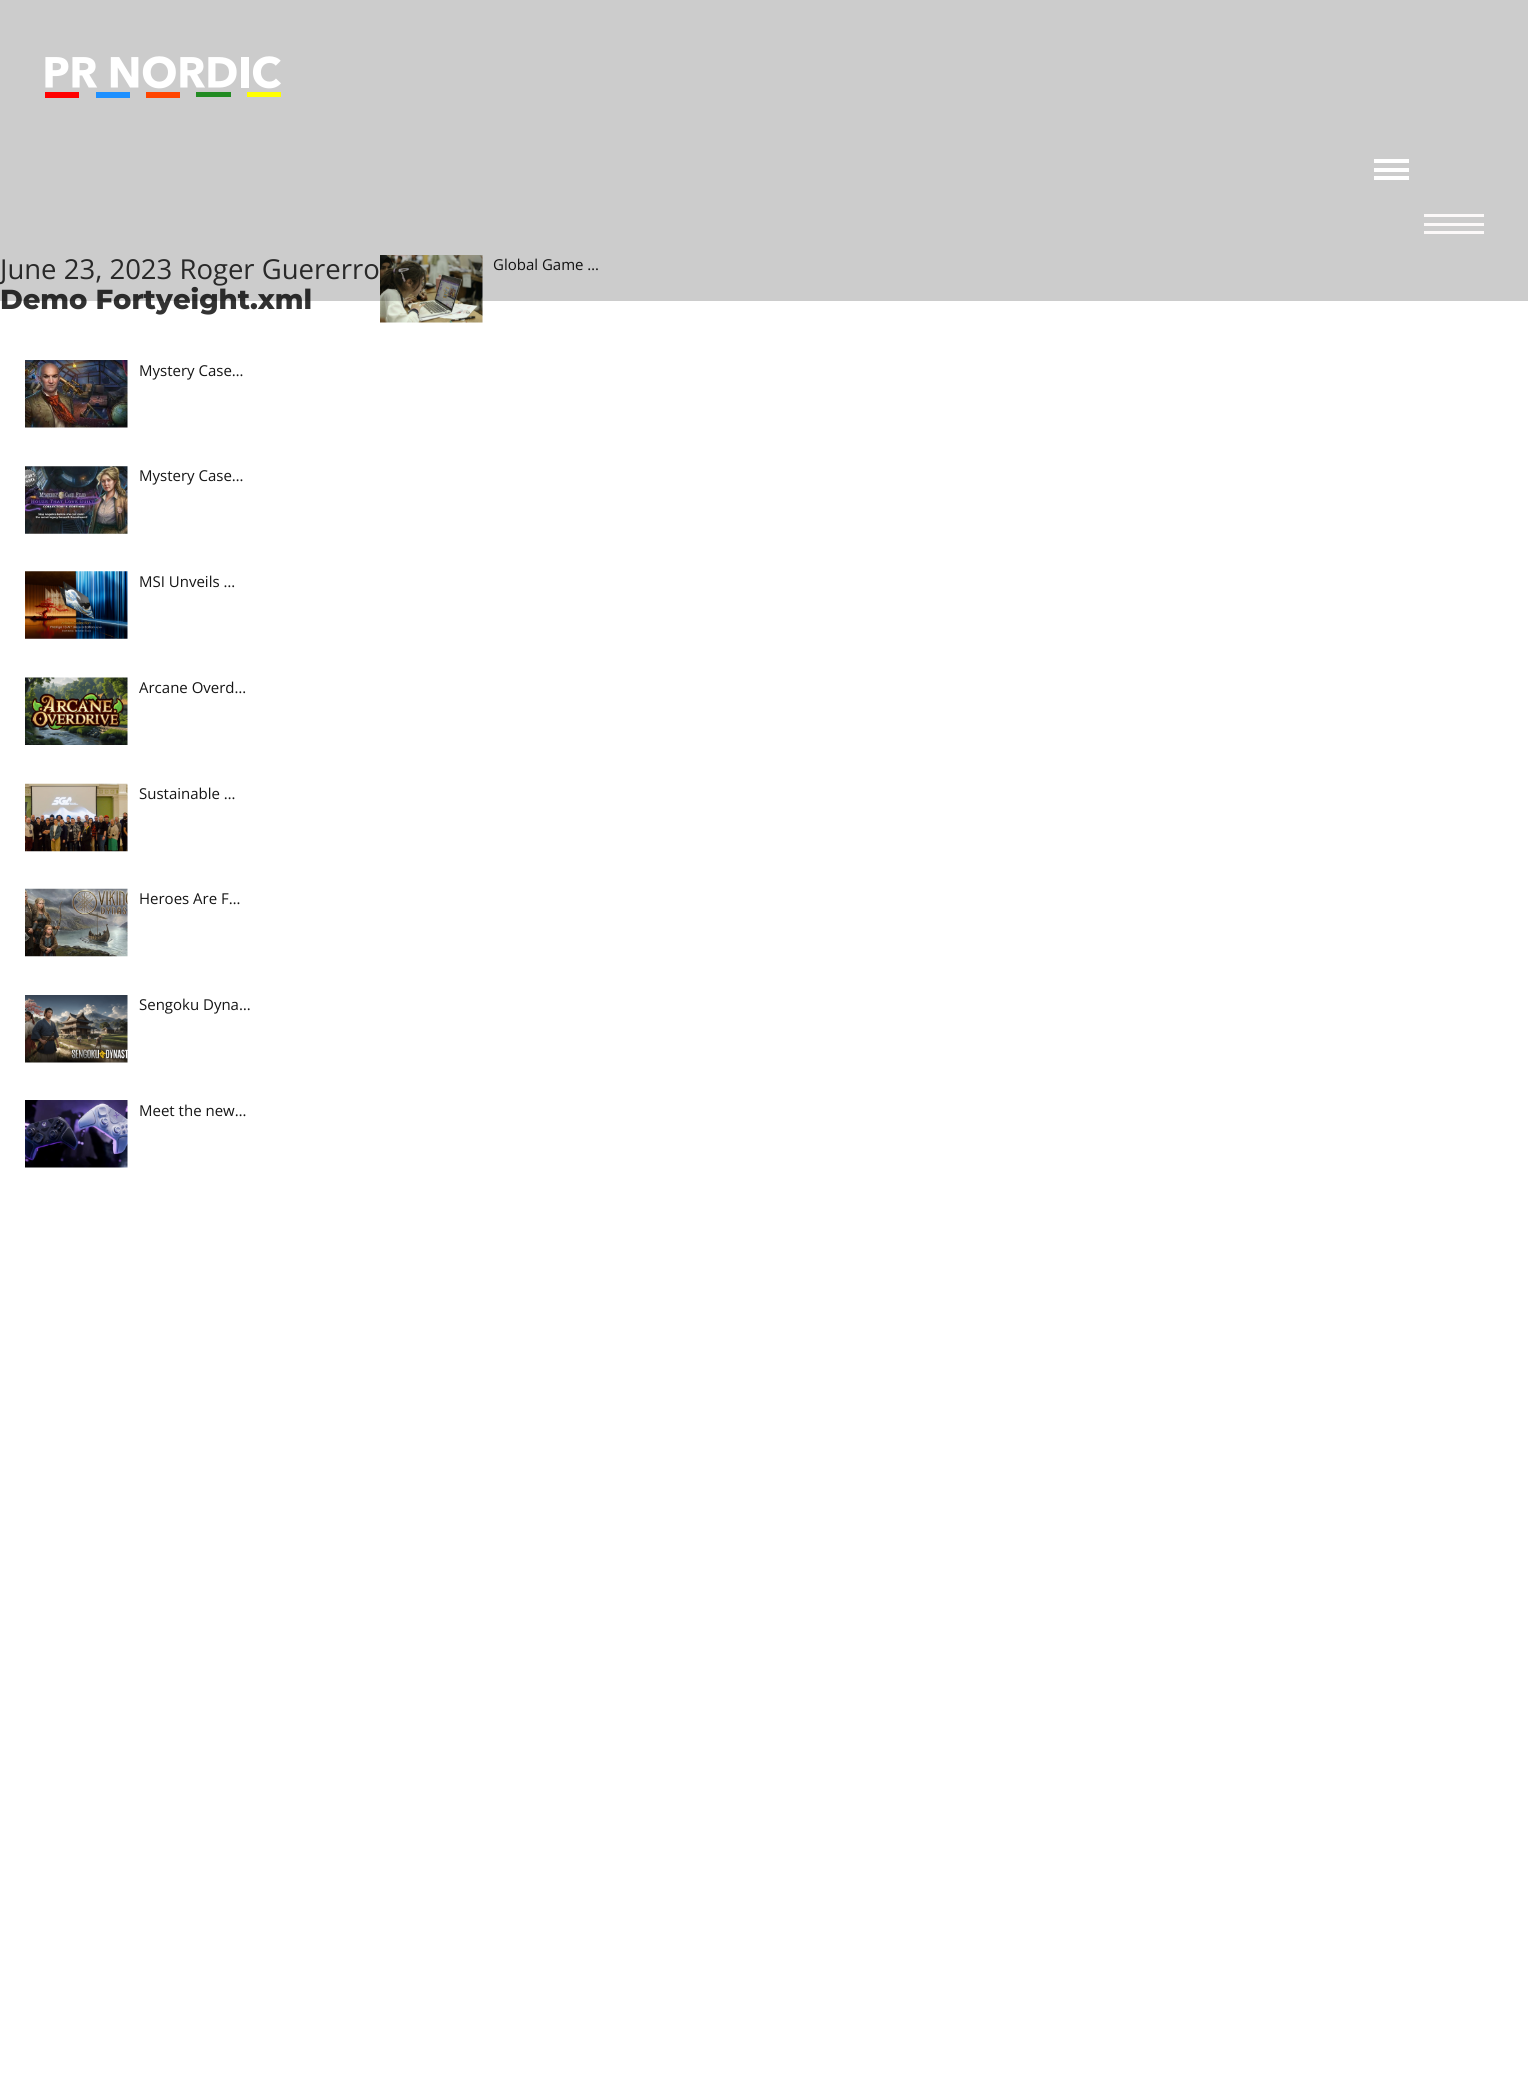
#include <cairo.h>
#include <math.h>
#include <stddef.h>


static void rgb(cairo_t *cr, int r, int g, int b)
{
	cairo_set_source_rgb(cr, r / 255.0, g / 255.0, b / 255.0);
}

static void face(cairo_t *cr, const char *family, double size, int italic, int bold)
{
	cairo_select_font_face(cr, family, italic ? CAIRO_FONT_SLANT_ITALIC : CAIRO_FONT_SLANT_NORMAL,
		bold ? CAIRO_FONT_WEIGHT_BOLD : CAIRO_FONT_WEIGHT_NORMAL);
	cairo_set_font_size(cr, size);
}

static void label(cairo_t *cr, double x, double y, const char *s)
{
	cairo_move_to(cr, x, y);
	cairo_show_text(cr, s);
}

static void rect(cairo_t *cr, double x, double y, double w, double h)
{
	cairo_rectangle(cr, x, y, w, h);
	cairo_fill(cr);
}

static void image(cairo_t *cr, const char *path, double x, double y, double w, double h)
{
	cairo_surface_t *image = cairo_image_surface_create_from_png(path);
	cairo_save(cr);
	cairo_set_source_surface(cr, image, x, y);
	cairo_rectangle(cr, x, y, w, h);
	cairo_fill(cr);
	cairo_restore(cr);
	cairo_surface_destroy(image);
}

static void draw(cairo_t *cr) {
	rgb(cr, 255, 255, 255);
	cairo_paint(cr);
	image(cr, "image1.png", 380, 255, 103, 68);
	face(cr, "Open Sans", 15, 0, 0);
	rgb(cr, 21, 21, 21);
	label(cr, 493, 270, "Global Game …");
	face(cr, "Open Sans", 27.5, 0, 0);
	rgb(cr, 51, 51, 51);
	label(cr, 0, 279, "June 23, 2023 Roger Guererro");
	face(cr, "Montserrat ExtraBold", 27.5, 0, 0);
	label(cr, 0, 309, "Demo Fortyeight.xml");
	cairo_set_source_rgba(cr, 0, 0, 0, 0.2);
	rect(cr, 0, 0, 1528, 301);
	image(cr, "image0.png", 45, 56, 236, 42);
	rgb(cr, 255, 255, 255);
	rect(cr, 1374, 168, 35, 4);
	rect(cr, 1374, 159, 35, 4);
	rect(cr, 1374, 176, 35, 4);
	rgb(cr, 252, 249, 249);
	rect(cr, 1424, 223, 60, 3);
	rect(cr, 1424, 214, 60, 3);
	rect(cr, 1424, 231, 60, 3);
	image(cr, "image2.png", 25, 360, 103, 68);
	face(cr, "Open Sans", 15, 0, 0);
	rgb(cr, 21, 21, 21);
	label(cr, 139, 376, "Mystery Case…");
	image(cr, "image3.png", 25, 466, 103, 68);
	label(cr, 139, 481, "Mystery Case…");
	image(cr, "image4.png", 25, 571, 103, 68);
	label(cr, 139, 587, "MSI Unveils …");
	image(cr, "image5.png", 25, 677, 103, 68);
	label(cr, 139, 693, "Arcane Overd…");
	image(cr, "image6.png", 25, 783, 103, 69);
	label(cr, 139, 799, "Sustainable …");
	image(cr, "image7.png", 25, 888, 103, 69);
	label(cr, 139, 904, "Heroes Are F…");
	image(cr, "image8.png", 25, 995, 103, 68);
	label(cr, 139, 1010, "Sengoku Dyna…");
	image(cr, "image9.png", 25, 1100, 103, 68);
	label(cr, 139, 1116, "Meet the new…");
}

int main(void) {
	cairo_surface_t *surface = cairo_image_surface_create(CAIRO_FORMAT_RGB24, 1528, 2079);
	cairo_t *cr = cairo_create(surface);
	cairo_font_options_t *options = cairo_font_options_create();
	cairo_font_options_set_hint_metrics(options, CAIRO_HINT_METRICS_OFF);
	cairo_font_options_set_hint_style(options, CAIRO_HINT_STYLE_NONE);
	cairo_set_font_options(cr, options);
	cairo_set_miter_limit(cr, 4);
	draw(cr);
	cairo_surface_write_to_png(surface, "render.png");
	cairo_font_options_destroy(options);
	cairo_destroy(cr);
	cairo_surface_destroy(surface);
	return 0;
}
